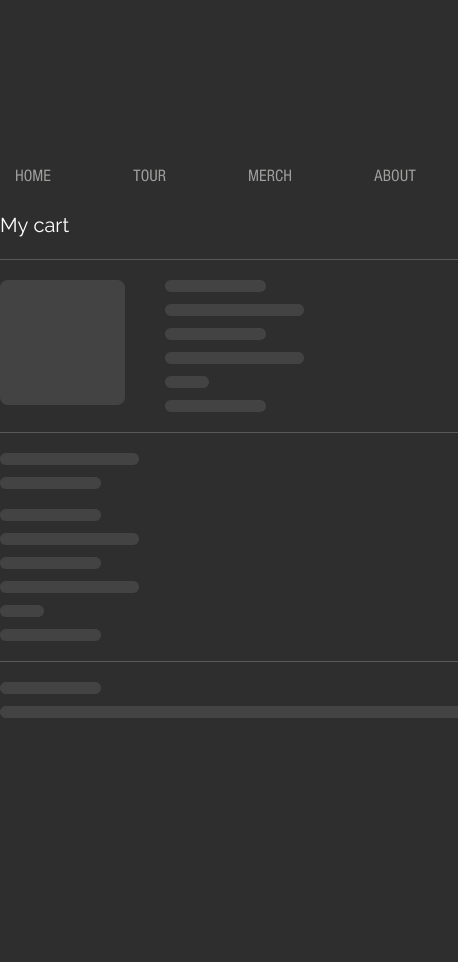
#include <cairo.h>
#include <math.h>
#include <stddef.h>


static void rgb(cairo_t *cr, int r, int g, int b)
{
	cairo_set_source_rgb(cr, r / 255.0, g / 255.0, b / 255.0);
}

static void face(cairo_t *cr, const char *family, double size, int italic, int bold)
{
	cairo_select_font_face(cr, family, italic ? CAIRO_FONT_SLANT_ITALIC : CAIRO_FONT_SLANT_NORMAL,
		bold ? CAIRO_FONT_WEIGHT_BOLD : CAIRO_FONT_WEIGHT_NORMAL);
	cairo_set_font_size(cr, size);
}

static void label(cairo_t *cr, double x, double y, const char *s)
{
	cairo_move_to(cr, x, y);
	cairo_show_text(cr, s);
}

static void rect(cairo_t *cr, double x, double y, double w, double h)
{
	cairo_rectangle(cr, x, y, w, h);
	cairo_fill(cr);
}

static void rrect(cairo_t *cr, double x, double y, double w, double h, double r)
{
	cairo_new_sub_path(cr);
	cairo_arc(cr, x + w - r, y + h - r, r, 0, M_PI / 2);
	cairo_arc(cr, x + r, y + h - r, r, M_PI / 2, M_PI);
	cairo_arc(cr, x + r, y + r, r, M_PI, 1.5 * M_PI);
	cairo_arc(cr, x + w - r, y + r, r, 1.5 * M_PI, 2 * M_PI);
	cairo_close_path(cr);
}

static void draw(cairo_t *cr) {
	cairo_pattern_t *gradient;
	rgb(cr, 47, 46, 46);
	cairo_paint(cr);
	face(cr, "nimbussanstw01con", 17, 0, 0);
	rgb(cr, 160, 160, 159);
	label(cr, 15, 181, "HOME");
	label(cr, 133, 181, "TOUR");
	label(cr, 248, 181, "MERCH");
	label(cr, 374, 181, "ABOUT");
	rgb(cr, 89, 88, 88);
	rect(cr, 0, 259, 458, 1);
	face(cr, "Raleway", 20, 0, 0);
	rgb(cr, 255, 255, 255);
	label(cr, 0, 232, "My cart");
	gradient = cairo_pattern_create_linear(0, 343, 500, 343);
	cairo_pattern_add_color_stop_rgba(gradient, 0.25, 0.267, 0.263, 0.263, 1);
	cairo_pattern_add_color_stop_rgba(gradient, 0.37, 0.349, 0.345, 0.345, 1);
	cairo_pattern_add_color_stop_rgba(gradient, 0.63, 0.267, 0.263, 0.263, 1);
	cairo_set_source(cr, gradient);
	cairo_pattern_destroy(gradient);
	rrect(cr, 0, 280, 125, 125, 8);
	cairo_fill(cr);
	gradient = cairo_pattern_create_linear(165, 286, 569, 286);
	cairo_pattern_add_color_stop_rgba(gradient, 0.25, 0.267, 0.263, 0.263, 1);
	cairo_pattern_add_color_stop_rgba(gradient, 0.37, 0.349, 0.345, 0.345, 1);
	cairo_pattern_add_color_stop_rgba(gradient, 0.63, 0.267, 0.263, 0.263, 1);
	cairo_set_source(cr, gradient);
	cairo_pattern_destroy(gradient);
	rrect(cr, 165, 280, 101, 12, 6);
	cairo_fill(cr);
	gradient = cairo_pattern_create_linear(165, 310, 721, 310);
	cairo_pattern_add_color_stop_rgba(gradient, 0.25, 0.267, 0.263, 0.263, 1);
	cairo_pattern_add_color_stop_rgba(gradient, 0.37, 0.349, 0.345, 0.345, 1);
	cairo_pattern_add_color_stop_rgba(gradient, 0.63, 0.267, 0.263, 0.263, 1);
	cairo_set_source(cr, gradient);
	cairo_pattern_destroy(gradient);
	rrect(cr, 165, 304, 139, 12, 6);
	cairo_fill(cr);
	gradient = cairo_pattern_create_linear(165, 334, 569, 334);
	cairo_pattern_add_color_stop_rgba(gradient, 0.25, 0.267, 0.263, 0.263, 1);
	cairo_pattern_add_color_stop_rgba(gradient, 0.37, 0.349, 0.345, 0.345, 1);
	cairo_pattern_add_color_stop_rgba(gradient, 0.63, 0.267, 0.263, 0.263, 1);
	cairo_set_source(cr, gradient);
	cairo_pattern_destroy(gradient);
	rrect(cr, 165, 328, 101, 12, 6);
	cairo_fill(cr);
	gradient = cairo_pattern_create_linear(165, 358, 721, 358);
	cairo_pattern_add_color_stop_rgba(gradient, 0.25, 0.267, 0.263, 0.263, 1);
	cairo_pattern_add_color_stop_rgba(gradient, 0.37, 0.349, 0.345, 0.345, 1);
	cairo_pattern_add_color_stop_rgba(gradient, 0.63, 0.267, 0.263, 0.263, 1);
	cairo_set_source(cr, gradient);
	cairo_pattern_destroy(gradient);
	rrect(cr, 165, 352, 139, 12, 6);
	cairo_fill(cr);
	gradient = cairo_pattern_create_linear(165, 382, 341, 382);
	cairo_pattern_add_color_stop_rgba(gradient, 0.25, 0.267, 0.263, 0.263, 1);
	cairo_pattern_add_color_stop_rgba(gradient, 0.37, 0.349, 0.345, 0.345, 1);
	cairo_pattern_add_color_stop_rgba(gradient, 0.63, 0.267, 0.263, 0.263, 1);
	cairo_set_source(cr, gradient);
	cairo_pattern_destroy(gradient);
	rrect(cr, 165, 376, 44, 12, 6);
	cairo_fill(cr);
	gradient = cairo_pattern_create_linear(165, 406, 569, 406);
	cairo_pattern_add_color_stop_rgba(gradient, 0.25, 0.267, 0.263, 0.263, 1);
	cairo_pattern_add_color_stop_rgba(gradient, 0.37, 0.349, 0.345, 0.345, 1);
	cairo_pattern_add_color_stop_rgba(gradient, 0.63, 0.267, 0.263, 0.263, 1);
	cairo_set_source(cr, gradient);
	cairo_pattern_destroy(gradient);
	rrect(cr, 165, 400, 101, 12, 6);
	cairo_fill(cr);
	rgb(cr, 89, 88, 88);
	rect(cr, 0, 432, 458, 1);
	gradient = cairo_pattern_create_linear(0, 459, 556, 459);
	cairo_pattern_add_color_stop_rgba(gradient, 0.25, 0.267, 0.263, 0.263, 1);
	cairo_pattern_add_color_stop_rgba(gradient, 0.37, 0.349, 0.345, 0.345, 1);
	cairo_pattern_add_color_stop_rgba(gradient, 0.63, 0.267, 0.263, 0.263, 1);
	cairo_set_source(cr, gradient);
	cairo_pattern_destroy(gradient);
	rrect(cr, 0, 453, 139, 12, 6);
	cairo_fill(cr);
	gradient = cairo_pattern_create_linear(0, 483, 404, 483);
	cairo_pattern_add_color_stop_rgba(gradient, 0.25, 0.267, 0.263, 0.263, 1);
	cairo_pattern_add_color_stop_rgba(gradient, 0.37, 0.349, 0.345, 0.345, 1);
	cairo_pattern_add_color_stop_rgba(gradient, 0.63, 0.267, 0.263, 0.263, 1);
	cairo_set_source(cr, gradient);
	cairo_pattern_destroy(gradient);
	rrect(cr, 0, 477, 101, 12, 6);
	cairo_fill(cr);
	gradient = cairo_pattern_create_linear(0, 515, 404, 515);
	cairo_pattern_add_color_stop_rgba(gradient, 0.25, 0.267, 0.263, 0.263, 1);
	cairo_pattern_add_color_stop_rgba(gradient, 0.37, 0.349, 0.345, 0.345, 1);
	cairo_pattern_add_color_stop_rgba(gradient, 0.63, 0.267, 0.263, 0.263, 1);
	cairo_set_source(cr, gradient);
	cairo_pattern_destroy(gradient);
	rrect(cr, 0, 509, 101, 12, 6);
	cairo_fill(cr);
	gradient = cairo_pattern_create_linear(0, 539, 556, 539);
	cairo_pattern_add_color_stop_rgba(gradient, 0.25, 0.267, 0.263, 0.263, 1);
	cairo_pattern_add_color_stop_rgba(gradient, 0.37, 0.349, 0.345, 0.345, 1);
	cairo_pattern_add_color_stop_rgba(gradient, 0.63, 0.267, 0.263, 0.263, 1);
	cairo_set_source(cr, gradient);
	cairo_pattern_destroy(gradient);
	rrect(cr, 0, 533, 139, 12, 6);
	cairo_fill(cr);
	gradient = cairo_pattern_create_linear(0, 563, 404, 563);
	cairo_pattern_add_color_stop_rgba(gradient, 0.25, 0.267, 0.263, 0.263, 1);
	cairo_pattern_add_color_stop_rgba(gradient, 0.37, 0.349, 0.345, 0.345, 1);
	cairo_pattern_add_color_stop_rgba(gradient, 0.63, 0.267, 0.263, 0.263, 1);
	cairo_set_source(cr, gradient);
	cairo_pattern_destroy(gradient);
	rrect(cr, 0, 557, 101, 12, 6);
	cairo_fill(cr);
	gradient = cairo_pattern_create_linear(0, 587, 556, 587);
	cairo_pattern_add_color_stop_rgba(gradient, 0.25, 0.267, 0.263, 0.263, 1);
	cairo_pattern_add_color_stop_rgba(gradient, 0.37, 0.349, 0.345, 0.345, 1);
	cairo_pattern_add_color_stop_rgba(gradient, 0.63, 0.267, 0.263, 0.263, 1);
	cairo_set_source(cr, gradient);
	cairo_pattern_destroy(gradient);
	rrect(cr, 0, 581, 139, 12, 6);
	cairo_fill(cr);
	gradient = cairo_pattern_create_linear(0, 611, 176, 611);
	cairo_pattern_add_color_stop_rgba(gradient, 0.25, 0.267, 0.263, 0.263, 1);
	cairo_pattern_add_color_stop_rgba(gradient, 0.37, 0.349, 0.345, 0.345, 1);
	cairo_pattern_add_color_stop_rgba(gradient, 0.63, 0.267, 0.263, 0.263, 1);
	cairo_set_source(cr, gradient);
	cairo_pattern_destroy(gradient);
	rrect(cr, 0, 605, 44, 12, 6);
	cairo_fill(cr);
	gradient = cairo_pattern_create_linear(0, 635, 404, 635);
	cairo_pattern_add_color_stop_rgba(gradient, 0.25, 0.267, 0.263, 0.263, 1);
	cairo_pattern_add_color_stop_rgba(gradient, 0.37, 0.349, 0.345, 0.345, 1);
	cairo_pattern_add_color_stop_rgba(gradient, 0.63, 0.267, 0.263, 0.263, 1);
	cairo_set_source(cr, gradient);
	cairo_pattern_destroy(gradient);
	rrect(cr, 0, 629, 101, 12, 6);
	cairo_fill(cr);
	rgb(cr, 89, 88, 88);
	rect(cr, 0, 661, 458, 1);
	gradient = cairo_pattern_create_linear(0, 688, 404, 688);
	cairo_pattern_add_color_stop_rgba(gradient, 0.25, 0.267, 0.263, 0.263, 1);
	cairo_pattern_add_color_stop_rgba(gradient, 0.37, 0.349, 0.345, 0.345, 1);
	cairo_pattern_add_color_stop_rgba(gradient, 0.63, 0.267, 0.263, 0.263, 1);
	cairo_set_source(cr, gradient);
	cairo_pattern_destroy(gradient);
	rrect(cr, 0, 682, 101, 12, 6);
	cairo_fill(cr);
	gradient = cairo_pattern_create_linear(0, 712, 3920, 712);
	cairo_pattern_add_color_stop_rgba(gradient, 0.25, 0.267, 0.263, 0.263, 1);
	cairo_pattern_add_color_stop_rgba(gradient, 0.37, 0.349, 0.345, 0.345, 1);
	cairo_pattern_add_color_stop_rgba(gradient, 0.63, 0.267, 0.263, 0.263, 1);
	cairo_set_source(cr, gradient);
	cairo_pattern_destroy(gradient);
	rrect(cr, 0, 706, 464, 12, 6);
	cairo_fill(cr);
}

int main(void) {
	cairo_surface_t *surface = cairo_image_surface_create(CAIRO_FORMAT_RGB24, 458, 962);
	cairo_t *cr = cairo_create(surface);
	cairo_font_options_t *options = cairo_font_options_create();
	cairo_font_options_set_hint_metrics(options, CAIRO_HINT_METRICS_OFF);
	cairo_font_options_set_hint_style(options, CAIRO_HINT_STYLE_NONE);
	cairo_set_font_options(cr, options);
	cairo_set_miter_limit(cr, 4);
	draw(cr);
	cairo_surface_write_to_png(surface, "render.png");
	cairo_font_options_destroy(options);
	cairo_destroy(cr);
	cairo_surface_destroy(surface);
	return 0;
}
